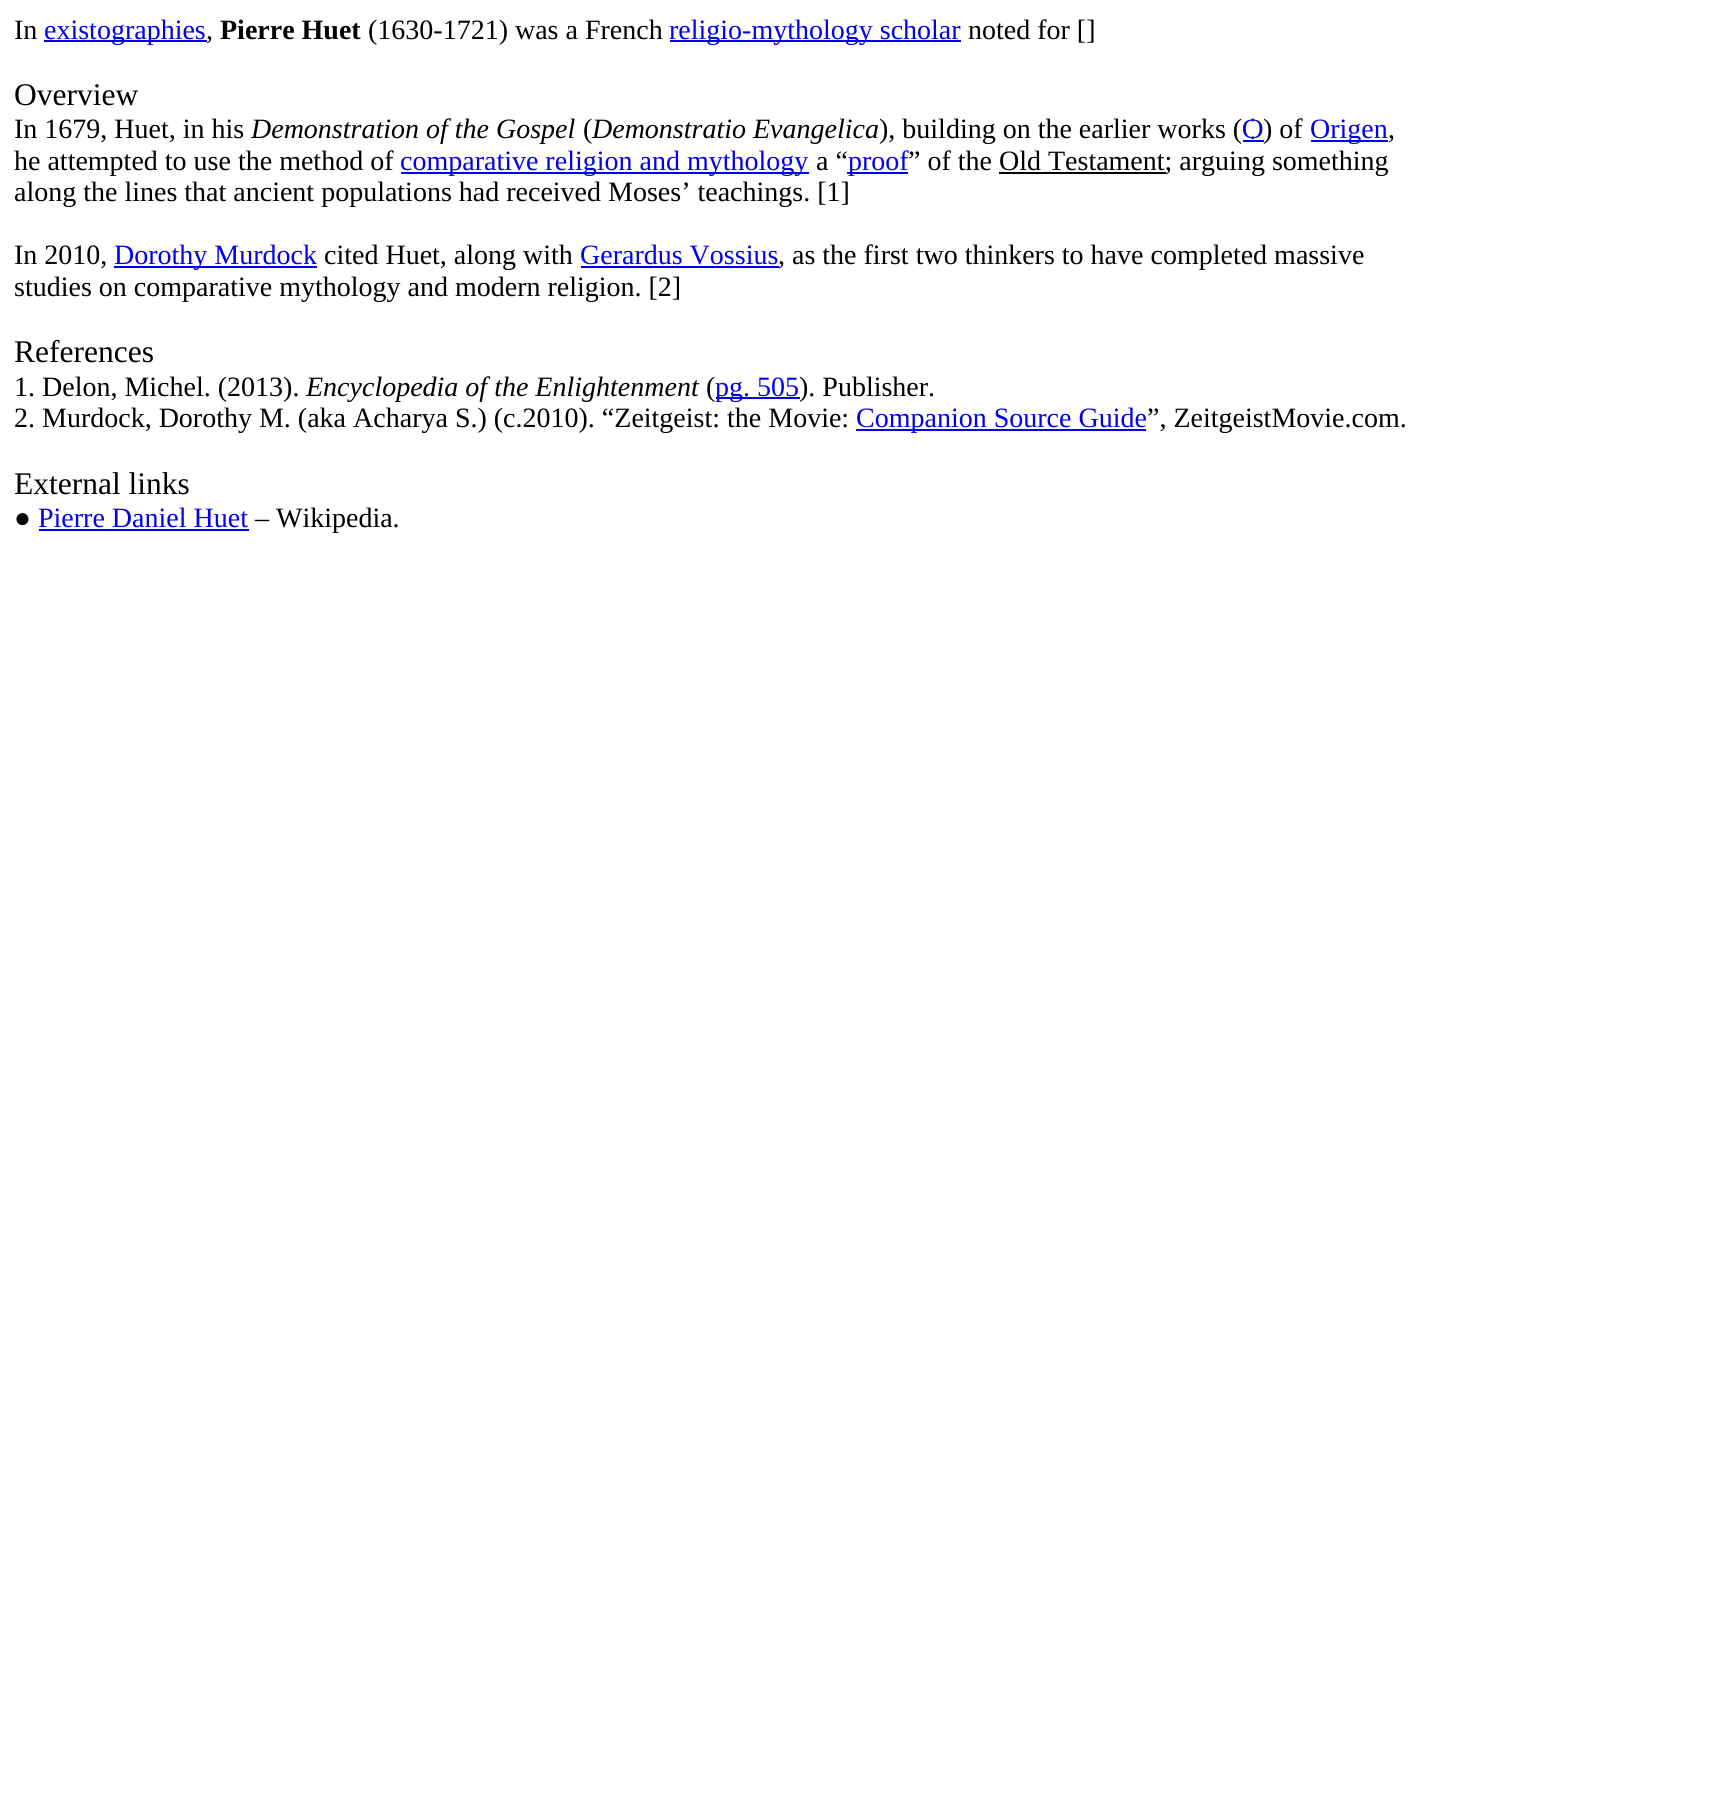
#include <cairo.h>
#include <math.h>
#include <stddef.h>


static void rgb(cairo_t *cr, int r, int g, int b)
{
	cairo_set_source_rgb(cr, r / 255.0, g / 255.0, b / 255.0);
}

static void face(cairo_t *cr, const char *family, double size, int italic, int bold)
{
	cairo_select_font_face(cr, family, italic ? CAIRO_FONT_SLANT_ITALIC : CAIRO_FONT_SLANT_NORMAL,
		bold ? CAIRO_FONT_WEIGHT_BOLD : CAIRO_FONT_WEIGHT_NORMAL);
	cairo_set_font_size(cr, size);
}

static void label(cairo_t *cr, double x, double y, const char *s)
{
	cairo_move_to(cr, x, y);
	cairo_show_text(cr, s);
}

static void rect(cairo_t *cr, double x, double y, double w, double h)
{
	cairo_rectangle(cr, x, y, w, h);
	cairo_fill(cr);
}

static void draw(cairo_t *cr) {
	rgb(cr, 255, 255, 255);
	cairo_paint(cr);
	face(cr, "Liberation Serif", 28, 0, 0);
	rgb(cr, 0, 0, 0);
	label(cr, 14, 39, "In");
	rgb(cr, 0, 0, 238);
	rect(cr, 44, 40, 163, 2);
	label(cr, 44, 39, "existographies");
	face(cr, "Liberation Serif", 28, 0, 1);
	rgb(cr, 0, 0, 0);
	label(cr, 220, 39, "Pierre Huet");
	face(cr, "Liberation Serif", 28, 0, 0);
	label(cr, 368, 39, "(1630-1721) was a French");
	rgb(cr, 0, 0, 238);
	rect(cr, 670, 40, 291, 2);
	label(cr, 669, 39, "religio-mythology scholar");
	rgb(cr, 0, 0, 0);
	label(cr, 968, 39, "noted for []");
	label(cr, 206, 39, ",");
	face(cr, "Liberation Serif", 31.5, 0, 0);
	label(cr, 14, 105, "Overview");
	face(cr, "Liberation Serif", 28, 0, 0);
	label(cr, 14, 138, "In 1679, Huet, in his");
	face(cr, "Liberation Serif", 28, 1, 0);
	label(cr, 251, 138, "Demonstration of the Gospel");
	face(cr, "Liberation Serif", 28, 0, 0);
	label(cr, 583, 138, "(");
	face(cr, "Liberation Serif", 28, 1, 0);
	label(cr, 592, 138, "Demonstratio Evangelica");
	face(cr, "Liberation Serif", 28, 0, 0);
	label(cr, 879, 138, "), building on the earlier works (");
	rgb(cr, 0, 0, 238);
	label(cr, 1242, 138, "Ѻ");
	rect(cr, 1243, 140, 21, 2);
	rgb(cr, 0, 0, 0);
	label(cr, 1263, 138, ") of");
	rgb(cr, 0, 0, 238);
	rect(cr, 1311, 140, 77, 2);
	label(cr, 1310, 138, "Origen");
	rgb(cr, 0, 0, 0);
	label(cr, 1388, 138, ",");
	label(cr, 14, 170, "he attempted to use the method of");
	rgb(cr, 0, 0, 238);
	rect(cr, 401, 172, 408, 2);
	label(cr, 400, 170, "comparative religion and mythology");
	rgb(cr, 0, 0, 0);
	label(cr, 816, 170, "a “");
	rgb(cr, 0, 0, 238);
	rect(cr, 847, 172, 61, 2);
	label(cr, 848, 170, "proof");
	rgb(cr, 0, 0, 0);
	label(cr, 908, 170, "” of the Old Testament; arguing something");
	rect(cr, 999, 172, 167, 2);
	label(cr, 14, 201, "along the lines that ancient populations had received Moses’ teachings. [1]");
	label(cr, 14, 264, "In 2010,");
	rgb(cr, 0, 0, 238);
	rect(cr, 114, 266, 203, 2);
	label(cr, 114, 264, "Dorothy Murdock");
	rgb(cr, 0, 0, 0);
	label(cr, 324, 264, "cited Huet, along with");
	rgb(cr, 0, 0, 238);
	label(cr, 580, 264, "Gerardus Vossius");
	rect(cr, 581, 266, 198, 2);
	rgb(cr, 0, 0, 0);
	label(cr, 778, 264, ", as the first two thinkers to have completed massive");
	label(cr, 14, 296, "studies on comparative mythology and modern religion. [2]");
	face(cr, "Liberation Serif", 31.5, 0, 0);
	label(cr, 14, 362, "References");
	face(cr, "Liberation Serif", 28, 0, 0);
	label(cr, 14, 396, "1. Delon, Michel. (2013).");
	face(cr, "Liberation Serif", 28, 1, 0);
	label(cr, 306, 396, "Encyclopedia of the Enlightenment");
	face(cr, "Liberation Serif", 28, 0, 0);
	label(cr, 706, 396, "(");
	rgb(cr, 0, 0, 238);
	rect(cr, 716, 397, 84, 2);
	label(cr, 715, 396, "pg. 505");
	rgb(cr, 0, 0, 0);
	label(cr, 799, 396, "). Publisher.");
	label(cr, 14, 427, "2. Murdock, Dorothy M. (aka Acharya S.) (c.2010). “Zeitgeist: the Movie:");
	rgb(cr, 0, 0, 238);
	rect(cr, 856, 429, 290, 2);
	label(cr, 856, 427, "Companion Source Guide");
	rgb(cr, 0, 0, 0);
	label(cr, 1147, 427, "”, ZeitgeistMovie.com.");
	face(cr, "Liberation Serif", 31.5, 0, 0);
	label(cr, 14, 494, "External links");
	face(cr, "Liberation Serif", 28, 0, 0);
	label(cr, 14, 527, "●");
	rgb(cr, 0, 0, 238);
	label(cr, 38, 527, "Pierre Daniel Huet");
	rect(cr, 39, 529, 210, 2);
	rgb(cr, 0, 0, 0);
	label(cr, 255, 527, "– Wikipedia.");
}

int main(void) {
	cairo_surface_t *surface = cairo_image_surface_create(CAIRO_FORMAT_RGB24, 1709, 1805);
	cairo_t *cr = cairo_create(surface);
	cairo_font_options_t *options = cairo_font_options_create();
	cairo_font_options_set_hint_metrics(options, CAIRO_HINT_METRICS_OFF);
	cairo_font_options_set_hint_style(options, CAIRO_HINT_STYLE_NONE);
	cairo_set_font_options(cr, options);
	cairo_set_miter_limit(cr, 4);
	draw(cr);
	cairo_surface_write_to_png(surface, "render.png");
	cairo_font_options_destroy(options);
	cairo_destroy(cr);
	cairo_surface_destroy(surface);
	return 0;
}
